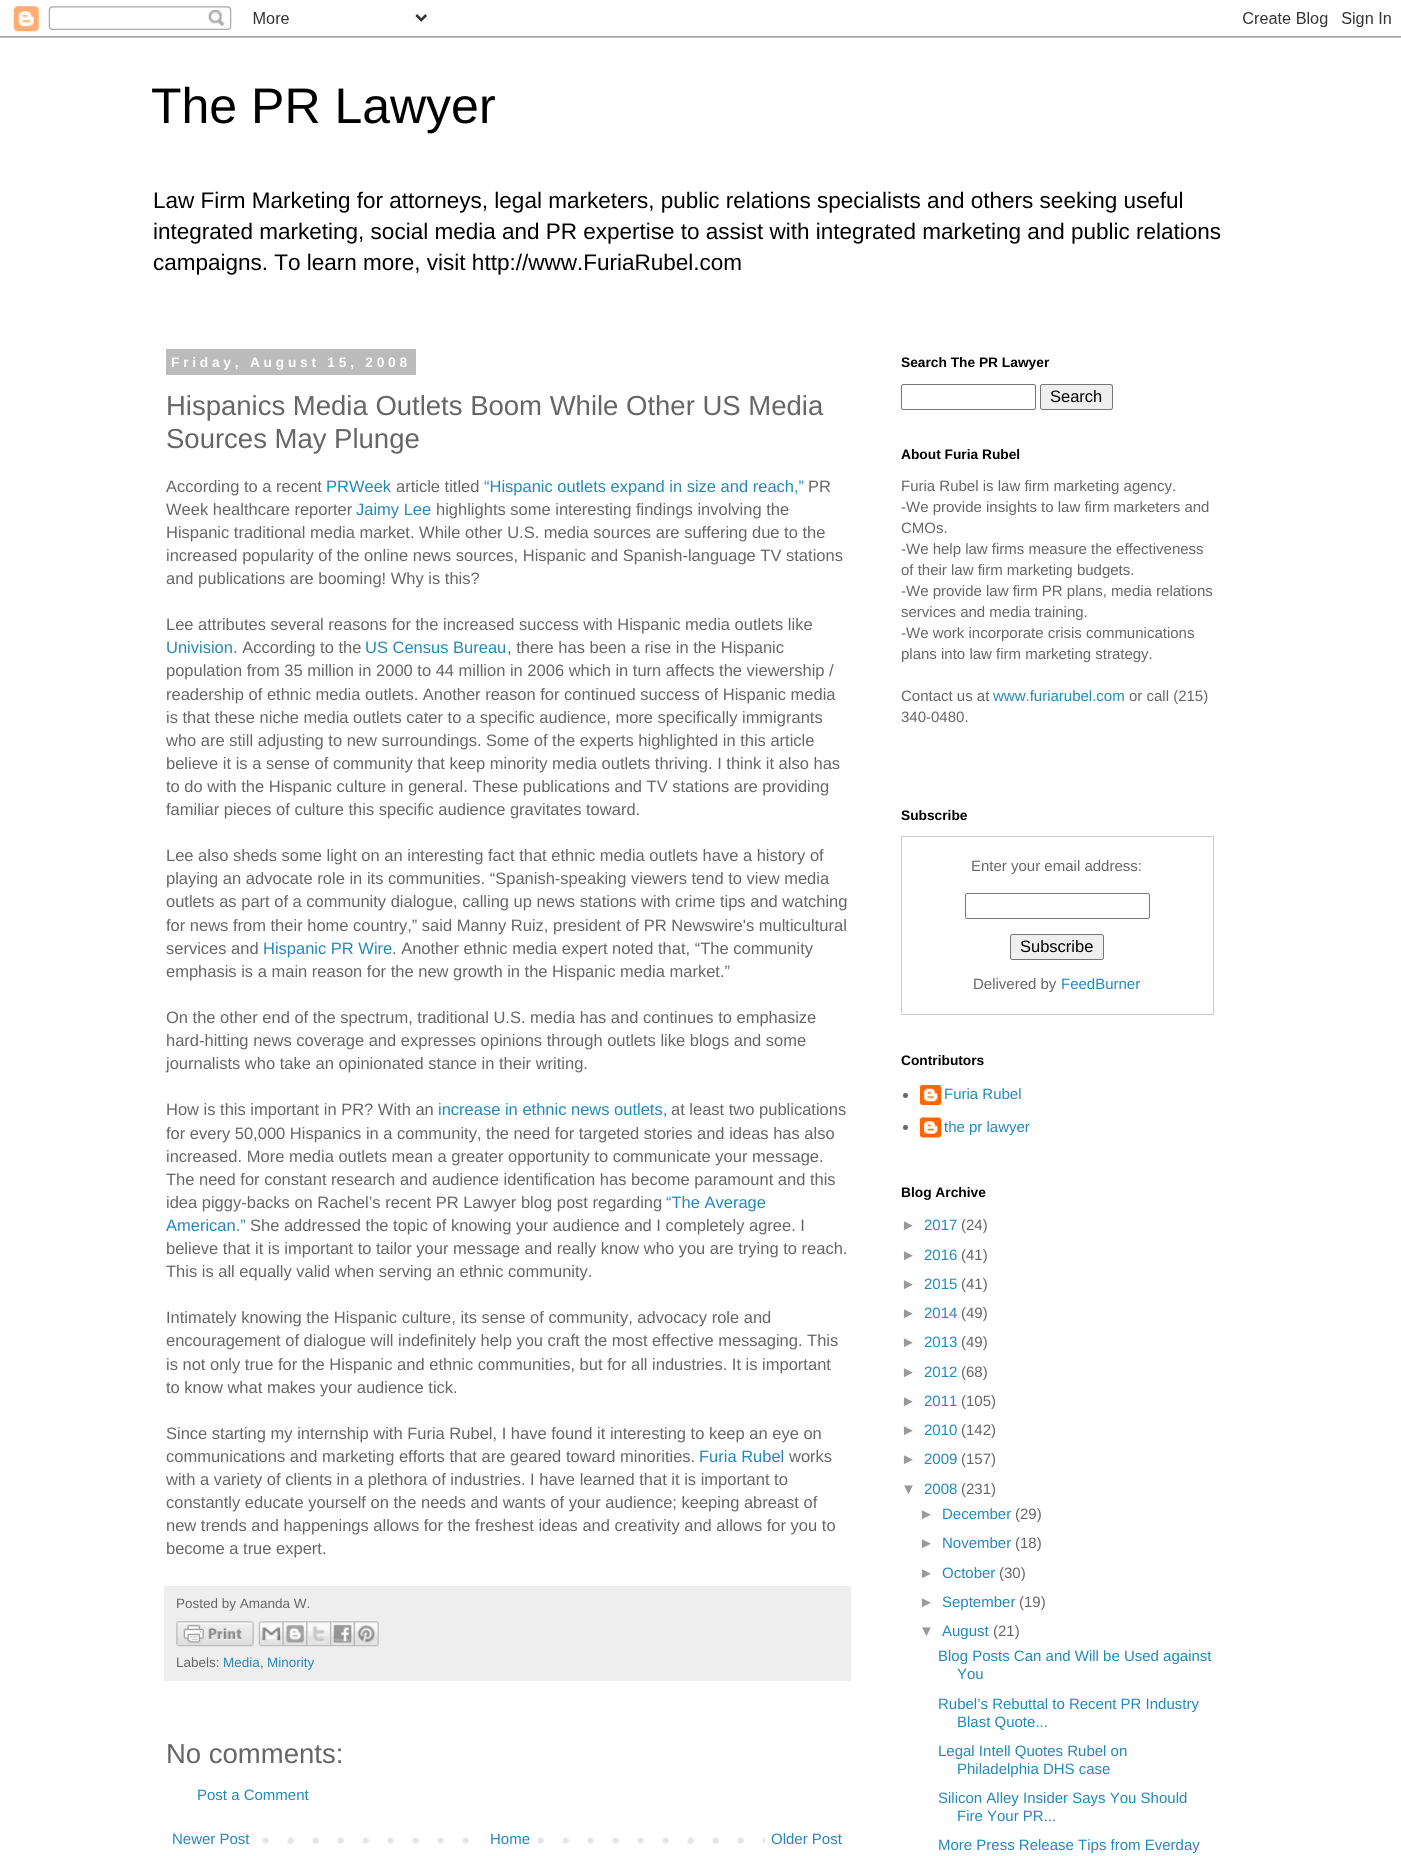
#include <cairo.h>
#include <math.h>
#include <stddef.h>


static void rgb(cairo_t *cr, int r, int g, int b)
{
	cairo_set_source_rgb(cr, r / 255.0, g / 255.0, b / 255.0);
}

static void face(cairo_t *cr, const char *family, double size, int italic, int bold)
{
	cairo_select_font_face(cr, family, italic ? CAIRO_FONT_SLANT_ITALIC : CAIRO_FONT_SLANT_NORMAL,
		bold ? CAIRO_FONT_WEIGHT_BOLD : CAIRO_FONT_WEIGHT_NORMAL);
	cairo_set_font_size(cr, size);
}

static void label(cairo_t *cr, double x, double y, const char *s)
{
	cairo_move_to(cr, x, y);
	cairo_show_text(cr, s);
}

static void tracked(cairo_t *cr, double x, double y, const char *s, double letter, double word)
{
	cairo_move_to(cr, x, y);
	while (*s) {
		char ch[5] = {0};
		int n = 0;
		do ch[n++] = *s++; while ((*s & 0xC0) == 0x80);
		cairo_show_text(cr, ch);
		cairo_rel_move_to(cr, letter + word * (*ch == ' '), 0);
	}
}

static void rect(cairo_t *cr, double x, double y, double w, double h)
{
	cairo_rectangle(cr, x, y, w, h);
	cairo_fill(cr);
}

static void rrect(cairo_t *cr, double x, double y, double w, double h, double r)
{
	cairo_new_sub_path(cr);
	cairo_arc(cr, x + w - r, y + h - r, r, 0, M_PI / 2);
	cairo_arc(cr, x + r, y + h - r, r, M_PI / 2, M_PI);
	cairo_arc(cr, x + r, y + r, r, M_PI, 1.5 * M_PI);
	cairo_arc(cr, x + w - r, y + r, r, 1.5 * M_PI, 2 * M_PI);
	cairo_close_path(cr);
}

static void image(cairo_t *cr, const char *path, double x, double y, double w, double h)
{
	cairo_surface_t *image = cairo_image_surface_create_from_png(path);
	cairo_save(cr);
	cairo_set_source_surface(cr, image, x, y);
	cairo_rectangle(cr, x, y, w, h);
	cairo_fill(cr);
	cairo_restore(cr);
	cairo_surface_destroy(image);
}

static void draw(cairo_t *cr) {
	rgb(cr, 255, 255, 255);
	cairo_paint(cr);
	image(cr, "image0.png", 0, 6, 1401, 32);
	face(cr, "Liberation Sans", 50, 0, 0);
	rgb(cr, 0, 0, 0);
	label(cr, 151, 123, "The PR Lawyer");
	face(cr, "Liberation Sans", 22.5, 0, 0);
	label(cr, 153, 208, "Law Firm Marketing for attorneys, legal marketers, public relations specialists and others seeking useful");
	label(cr, 153, 239, "integrated marketing, social media and PR expertise to assist with integrated marketing and public relations");
	label(cr, 153, 270, "campaigns. To learn more, visit http://www.FuriaRubel.com");
	rgb(cr, 187, 187, 187);
	rect(cr, 166, 349, 250, 26);
	face(cr, "Liberation Sans", 13.75, 0, 1);
	rgb(cr, 255, 255, 255);
	tracked(cr, 171, 367, "Friday, August 15, 2008", 3.75, 0);
	face(cr, "Liberation Sans", 27.5, 0, 0);
	rgb(cr, 102, 102, 102);
	label(cr, 166, 415, "Hispanics Media Outlets Boom While Other US Media");
	label(cr, 166, 448, "Sources May Plunge");
	face(cr, "Liberation Sans", 16.5, 0, 0);
	label(cr, 166, 492, "According to a recent");
	rgb(cr, 34, 136, 187);
	label(cr, 326, 492, "PRWeek");
	rgb(cr, 102, 102, 102);
	label(cr, 396, 492, "article titled");
	rgb(cr, 34, 136, 187);
	label(cr, 484, 492, "“Hispanic outlets expand in size and reach,”");
	rgb(cr, 102, 102, 102);
	label(cr, 808, 492, "PR");
	label(cr, 166, 515, "Week healthcare reporter");
	rgb(cr, 34, 136, 187);
	label(cr, 356, 515, "Jaimy Lee");
	rgb(cr, 102, 102, 102);
	label(cr, 436, 515, "highlights some interesting findings involving the");
	label(cr, 166, 538, "Hispanic traditional media market. While other U.S. media sources are suffering due to the");
	label(cr, 166, 561, "increased popularity of the online news sources, Hispanic and Spanish-language TV stations");
	label(cr, 166, 584, "and publications are booming! Why is this?");
	label(cr, 166, 630, "Lee attributes several reasons for the increased success with Hispanic media outlets like");
	rgb(cr, 34, 136, 187);
	label(cr, 166, 653, "Univision");
	rgb(cr, 102, 102, 102);
	label(cr, 233, 653, ". According to the");
	rgb(cr, 34, 136, 187);
	label(cr, 365, 653, "US Census Bureau");
	rgb(cr, 102, 102, 102);
	label(cr, 507, 653, ", there has been a rise in the Hispanic");
	label(cr, 166, 676, "population from 35 million in 2000 to 44 million in 2006 which in turn affects the viewership /");
	label(cr, 166, 700, "readership of ethnic media outlets. Another reason for continued success of Hispanic media");
	label(cr, 166, 723, "is that these niche media outlets cater to a specific audience, more specifically immigrants");
	label(cr, 166, 746, "who are still adjusting to new surroundings. Some of the experts highlighted in this article");
	label(cr, 166, 769, "believe it is a sense of community that keep minority media outlets thriving. I think it also has");
	label(cr, 166, 792, "to do with the Hispanic culture in general. These publications and TV stations are providing");
	label(cr, 166, 815, "familiar pieces of culture this specific audience gravitates toward.");
	label(cr, 166, 861, "Lee also sheds some light on an interesting fact that ethnic media outlets have a history of");
	label(cr, 166, 884, "playing an advocate role in its communities. “Spanish-speaking viewers tend to view media");
	label(cr, 166, 907, "outlets as part of a community dialogue, calling up news stations with crime tips and watching");
	label(cr, 166, 931, "for news from their home country,” said Manny Ruiz, president of PR Newswire's multicultural");
	label(cr, 166, 954, "services and");
	rgb(cr, 34, 136, 187);
	label(cr, 263, 954, "Hispanic PR Wire");
	rgb(cr, 102, 102, 102);
	label(cr, 392, 954, ". Another ethnic media expert noted that, “The community");
	label(cr, 166, 977, "emphasis is a main reason for the new growth in the Hispanic media market.”");
	label(cr, 166, 1023, "On the other end of the spectrum, traditional U.S. media has and continues to emphasize");
	label(cr, 166, 1046, "hard-hitting news coverage and expresses opinions through outlets like blogs and some");
	label(cr, 166, 1069, "journalists who take an opinionated stance in their writing.");
	label(cr, 166, 1115, "How is this important in PR? With an");
	rgb(cr, 34, 136, 187);
	label(cr, 438, 1115, "increase in ethnic news outlets,");
	rgb(cr, 102, 102, 102);
	label(cr, 671, 1115, "at least two publications");
	label(cr, 166, 1139, "for every 50,000 Hispanics in a community, the need for targeted stories and ideas has also");
	label(cr, 166, 1162, "increased. More media outlets mean a greater opportunity to communicate your message.");
	label(cr, 166, 1185, "The need for constant research and audience identification has become paramount and this");
	label(cr, 166, 1208, "idea piggy-backs on Rachel’s recent PR Lawyer blog post regarding");
	rgb(cr, 34, 136, 187);
	label(cr, 666, 1208, "“The Average");
	label(cr, 166, 1231, "American.”");
	rgb(cr, 102, 102, 102);
	label(cr, 250, 1231, "She addressed the topic of knowing your audience and I completely agree. I");
	label(cr, 166, 1254, "believe that it is important to tailor your message and really know who you are trying to reach.");
	label(cr, 166, 1277, "This is all equally valid when serving an ethnic community.");
	label(cr, 166, 1323, "Intimately knowing the Hispanic culture, its sense of community, advocacy role and");
	label(cr, 166, 1346, "encouragement of dialogue will indefinitely help you craft the most effective messaging. This");
	label(cr, 166, 1370, "is not only true for the Hispanic and ethnic communities, but for all industries. It is important");
	label(cr, 166, 1393, "to know what makes your audience tick.");
	label(cr, 166, 1439, "Since starting my internship with Furia Rubel, I have found it interesting to keep an eye on");
	label(cr, 166, 1462, "communications and marketing efforts that are geared toward minorities.");
	rgb(cr, 34, 136, 187);
	label(cr, 699, 1462, "Furia Rubel");
	rgb(cr, 102, 102, 102);
	label(cr, 789, 1462, "works");
	label(cr, 166, 1485, "with a variety of clients in a plethora of industries. I have learned that it is important to");
	label(cr, 166, 1508, "constantly educate yourself on the needs and wants of your audience; keeping abreast of");
	label(cr, 166, 1531, "new trends and happenings allows for the freshest ideas and creativity and allows for you to");
	label(cr, 166, 1554, "become a true expert.");
	rgb(cr, 238, 238, 238);
	rect(cr, 164, 1586, 687, 95);
	face(cr, "Liberation Sans", 13.5, 0, 0);
	rgb(cr, 102, 102, 102);
	label(cr, 176, 1608, "Posted by Amanda W.");
	image(cr, "image1.png", 176, 1621, 78, 26);
	image(cr, "image2.png", 258, 1621, 26, 26);
	image(cr, "image3.png", 282, 1621, 26, 26);
	image(cr, "image4.png", 306, 1621, 26, 26);
	image(cr, "image5.png", 330, 1621, 25, 26);
	image(cr, "image6.png", 353, 1621, 26, 26);
	label(cr, 176, 1667, "Labels:");
	rgb(cr, 34, 136, 187);
	label(cr, 223, 1667, "Media");
	rgb(cr, 102, 102, 102);
	label(cr, 260, 1667, ",");
	rgb(cr, 34, 136, 187);
	label(cr, 267, 1667, "Minority");
	face(cr, "Liberation Sans", 27.5, 0, 0);
	rgb(cr, 102, 102, 102);
	label(cr, 166, 1763, "No comments:");
	face(cr, "Liberation Sans", 15, 0, 0);
	rgb(cr, 34, 136, 187);
	label(cr, 197, 1800, "Post a Comment");
	image(cr, "image7.png", 262, 1837, 503, 7);
	label(cr, 172, 1844, "Newer Post");
	rgb(cr, 255, 255, 255);
	rect(cr, 487, 1837, 33, 7);
	rgb(cr, 34, 136, 187);
	label(cr, 490, 1844, "Home");
	label(cr, 771, 1844, "Older Post");
	face(cr, "Liberation Sans", 13.75, 0, 1);
	rgb(cr, 0, 0, 0);
	label(cr, 901, 367, "Search The PR Lawyer");
	rrect(cr, 901.5, 384.5, 134, 25, 2);
	rgb(cr, 118, 118, 118);
	cairo_set_line_width(cr, 1);
	cairo_stroke(cr);
	rgb(cr, 239, 239, 239);
	rrect(cr, 1040.5, 384.5, 72, 25, 2);
	cairo_fill_preserve(cr);
	rgb(cr, 118, 118, 118);
	cairo_stroke(cr);
	face(cr, "Liberation Sans", 16.5, 0, 0);
	rgb(cr, 0, 0, 0);
	label(cr, 1050, 402, "Search");
	face(cr, "Liberation Sans", 13.75, 0, 1);
	label(cr, 901, 459, "About Furia Rubel");
	face(cr, "Liberation Sans", 15, 0, 0);
	rgb(cr, 102, 102, 102);
	label(cr, 901, 491, "Furia Rubel is law firm marketing agency.");
	label(cr, 901, 512, "-We provide insights to law firm marketers and");
	label(cr, 901, 533, "CMOs.");
	label(cr, 901, 554, "-We help law firms measure the effectiveness");
	label(cr, 901, 575, "of their law firm marketing budgets.");
	label(cr, 901, 596, "-We provide law firm PR plans, media relations");
	label(cr, 901, 617, "services and media training.");
	label(cr, 901, 638, "-We work incorporate crisis communications");
	label(cr, 901, 659, "plans into law firm marketing strategy.");
	label(cr, 901, 701, "Contact us at");
	rgb(cr, 34, 136, 187);
	label(cr, 993, 701, "www.furiarubel.com");
	rgb(cr, 102, 102, 102);
	label(cr, 1129, 701, "or call (215)");
	label(cr, 901, 722, "340-0480.");
	face(cr, "Liberation Sans", 13.75, 0, 1);
	rgb(cr, 0, 0, 0);
	label(cr, 901, 820, "Subscribe");
	cairo_rectangle(cr, 901.5, 836.5, 312, 178);
	rgb(cr, 204, 204, 204);
	cairo_stroke(cr);
	face(cr, "Liberation Sans", 15, 0, 0);
	rgb(cr, 102, 102, 102);
	label(cr, 971, 871, "Enter your email address:");
	rrect(cr, 965.5, 893.5, 184, 25, 2);
	rgb(cr, 118, 118, 118);
	cairo_stroke(cr);
	rgb(cr, 239, 239, 239);
	rrect(cr, 1010.5, 934.5, 93, 25, 2);
	cairo_fill_preserve(cr);
	rgb(cr, 118, 118, 118);
	cairo_stroke(cr);
	face(cr, "Liberation Sans", 16.5, 0, 0);
	rgb(cr, 0, 0, 0);
	label(cr, 1020, 952, "Subscribe");
	face(cr, "Liberation Sans", 15, 0, 0);
	rgb(cr, 102, 102, 102);
	label(cr, 973, 989, "Delivered by");
	rgb(cr, 34, 136, 187);
	label(cr, 1061, 989, "FeedBurner");
	face(cr, "Liberation Sans", 13.75, 0, 1);
	rgb(cr, 0, 0, 0);
	label(cr, 901, 1065, "Contributors");
	rgb(cr, 102, 102, 102);
	cairo_new_path(cr);
	cairo_arc(cr, 905.5, 1095.5, 2.5, 0, 2 * M_PI);
	cairo_fill(cr);
	image(cr, "image8.png", 920, 1085, 22, 20);
	face(cr, "Liberation Sans", 15, 0, 0);
	rgb(cr, 34, 136, 187);
	label(cr, 944, 1099, "Furia Rubel");
	rgb(cr, 102, 102, 102);
	cairo_new_path(cr);
	cairo_arc(cr, 905.5, 1127.5, 2.5, 0, 2 * M_PI);
	cairo_fill(cr);
	image(cr, "image9.png", 920, 1117, 22, 21);
	rgb(cr, 34, 136, 187);
	label(cr, 944, 1132, "the pr lawyer");
	face(cr, "Liberation Sans", 13.75, 0, 1);
	rgb(cr, 0, 0, 0);
	label(cr, 901, 1197, "Blog Archive");
	face(cr, "Liberation Sans", 15, 0, 0);
	rgb(cr, 153, 153, 153);
	label(cr, 901, 1230, "►");
	rgb(cr, 34, 136, 187);
	label(cr, 924, 1230, "2017");
	rgb(cr, 102, 102, 102);
	label(cr, 961, 1230, "(24)");
	rgb(cr, 153, 153, 153);
	label(cr, 901, 1260, "►");
	rgb(cr, 34, 136, 187);
	label(cr, 924, 1260, "2016");
	rgb(cr, 102, 102, 102);
	label(cr, 961, 1260, "(41)");
	rgb(cr, 153, 153, 153);
	label(cr, 901, 1289, "►");
	rgb(cr, 34, 136, 187);
	label(cr, 924, 1289, "2015");
	rgb(cr, 102, 102, 102);
	label(cr, 961, 1289, "(41)");
	rgb(cr, 153, 153, 153);
	label(cr, 901, 1318, "►");
	rgb(cr, 34, 136, 187);
	label(cr, 924, 1318, "2014");
	rgb(cr, 102, 102, 102);
	label(cr, 961, 1318, "(49)");
	rgb(cr, 153, 153, 153);
	label(cr, 901, 1347, "►");
	rgb(cr, 34, 136, 187);
	label(cr, 924, 1347, "2013");
	rgb(cr, 102, 102, 102);
	label(cr, 961, 1347, "(49)");
	rgb(cr, 153, 153, 153);
	label(cr, 901, 1377, "►");
	rgb(cr, 34, 136, 187);
	label(cr, 924, 1377, "2012");
	rgb(cr, 102, 102, 102);
	label(cr, 961, 1377, "(68)");
	rgb(cr, 153, 153, 153);
	label(cr, 901, 1406, "►");
	rgb(cr, 34, 136, 187);
	label(cr, 924, 1406, "2011");
	rgb(cr, 102, 102, 102);
	label(cr, 961, 1406, "(105)");
	rgb(cr, 153, 153, 153);
	label(cr, 901, 1435, "►");
	rgb(cr, 34, 136, 187);
	label(cr, 924, 1435, "2010");
	rgb(cr, 102, 102, 102);
	label(cr, 961, 1435, "(142)");
	rgb(cr, 153, 153, 153);
	label(cr, 901, 1464, "►");
	rgb(cr, 34, 136, 187);
	label(cr, 924, 1464, "2009");
	rgb(cr, 102, 102, 102);
	label(cr, 961, 1464, "(157)");
	rgb(cr, 153, 153, 153);
	label(cr, 901, 1494, "▼");
	rgb(cr, 34, 136, 187);
	label(cr, 924, 1494, "2008");
	rgb(cr, 102, 102, 102);
	label(cr, 961, 1494, "(231)");
	rgb(cr, 153, 153, 153);
	label(cr, 919, 1519, "►");
	rgb(cr, 34, 136, 187);
	label(cr, 942, 1519, "December");
	rgb(cr, 102, 102, 102);
	label(cr, 1015, 1519, "(29)");
	rgb(cr, 153, 153, 153);
	label(cr, 919, 1548, "►");
	rgb(cr, 34, 136, 187);
	label(cr, 942, 1548, "November");
	rgb(cr, 102, 102, 102);
	label(cr, 1015, 1548, "(18)");
	rgb(cr, 153, 153, 153);
	label(cr, 919, 1578, "►");
	rgb(cr, 34, 136, 187);
	label(cr, 942, 1578, "October");
	rgb(cr, 102, 102, 102);
	label(cr, 999, 1578, "(30)");
	rgb(cr, 153, 153, 153);
	label(cr, 919, 1607, "►");
	rgb(cr, 34, 136, 187);
	label(cr, 942, 1607, "September");
	rgb(cr, 102, 102, 102);
	label(cr, 1019, 1607, "(19)");
	rgb(cr, 153, 153, 153);
	label(cr, 919, 1636, "▼");
	rgb(cr, 34, 136, 187);
	label(cr, 942, 1636, "August");
	rgb(cr, 102, 102, 102);
	label(cr, 993, 1636, "(21)");
	rgb(cr, 34, 136, 187);
	label(cr, 938, 1661, "Blog Posts Can and Will be Used against");
	label(cr, 957, 1679, "You");
	label(cr, 938, 1709, "Rubel’s Rebuttal to Recent PR Industry");
	label(cr, 957, 1727, "Blast Quote...");
	label(cr, 938, 1756, "Legal Intell Quotes Rubel on");
	label(cr, 957, 1774, "Philadelphia DHS case");
	label(cr, 938, 1803, "Silicon Alley Insider Says You Should");
	label(cr, 957, 1821, "Fire Your PR...");
	label(cr, 938, 1850, "More Press Release Tips from Everday");
}

int main(void) {
	cairo_surface_t *surface = cairo_image_surface_create(CAIRO_FORMAT_RGB24, 1401, 1856);
	cairo_t *cr = cairo_create(surface);
	cairo_font_options_t *options = cairo_font_options_create();
	cairo_font_options_set_hint_metrics(options, CAIRO_HINT_METRICS_OFF);
	cairo_font_options_set_hint_style(options, CAIRO_HINT_STYLE_NONE);
	cairo_set_font_options(cr, options);
	cairo_set_miter_limit(cr, 4);
	draw(cr);
	cairo_surface_write_to_png(surface, "render.png");
	cairo_font_options_destroy(options);
	cairo_destroy(cr);
	cairo_surface_destroy(surface);
	return 0;
}
